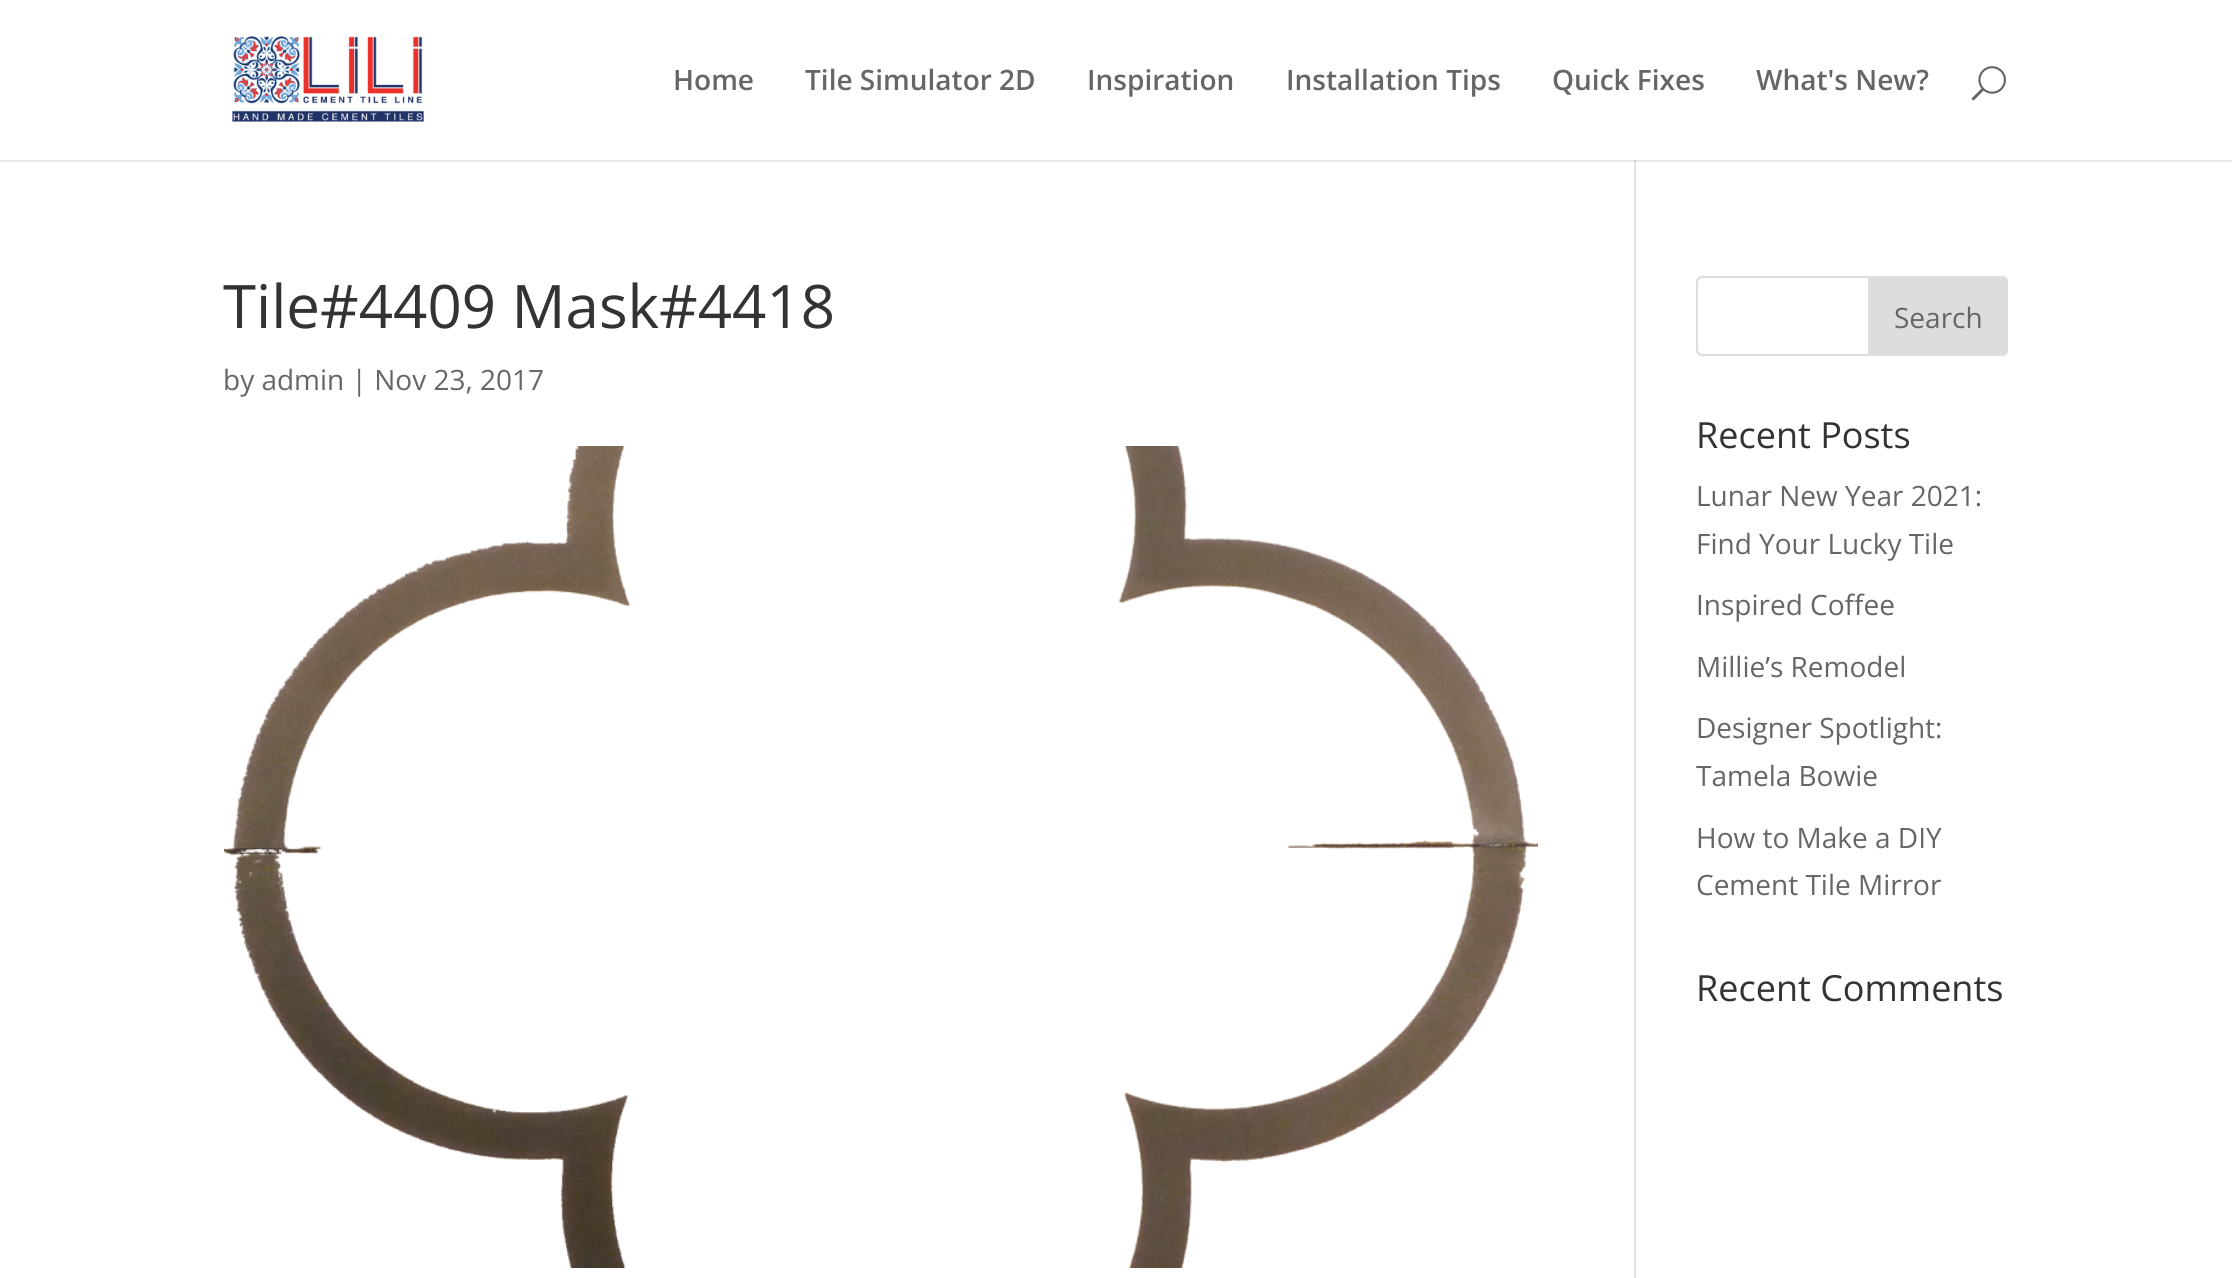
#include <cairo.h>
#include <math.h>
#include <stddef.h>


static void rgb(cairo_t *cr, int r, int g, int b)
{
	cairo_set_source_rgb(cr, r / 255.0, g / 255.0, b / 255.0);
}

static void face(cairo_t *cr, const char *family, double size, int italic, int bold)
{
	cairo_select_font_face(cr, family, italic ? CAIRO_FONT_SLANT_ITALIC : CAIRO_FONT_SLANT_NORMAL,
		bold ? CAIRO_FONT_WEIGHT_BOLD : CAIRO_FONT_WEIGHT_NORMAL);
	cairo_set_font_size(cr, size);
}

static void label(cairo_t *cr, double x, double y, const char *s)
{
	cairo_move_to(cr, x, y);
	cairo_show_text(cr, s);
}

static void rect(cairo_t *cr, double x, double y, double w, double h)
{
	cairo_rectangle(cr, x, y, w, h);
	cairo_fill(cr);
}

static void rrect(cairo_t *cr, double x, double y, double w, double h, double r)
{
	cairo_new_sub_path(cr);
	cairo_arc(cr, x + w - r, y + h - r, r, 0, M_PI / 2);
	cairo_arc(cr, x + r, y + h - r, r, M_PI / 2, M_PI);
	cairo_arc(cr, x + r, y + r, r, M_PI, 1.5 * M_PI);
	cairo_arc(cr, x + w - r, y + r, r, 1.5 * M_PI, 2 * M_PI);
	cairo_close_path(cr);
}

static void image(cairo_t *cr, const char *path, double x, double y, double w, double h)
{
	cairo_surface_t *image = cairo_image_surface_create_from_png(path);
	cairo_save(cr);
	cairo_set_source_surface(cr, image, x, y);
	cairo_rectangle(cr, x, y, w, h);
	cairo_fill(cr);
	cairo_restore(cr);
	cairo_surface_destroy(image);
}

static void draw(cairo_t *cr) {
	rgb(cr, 255, 255, 255);
	cairo_paint(cr);
	rgb(cr, 230, 230, 230);
	rect(cr, 0, 160, 2232, 2);
	image(cr, "image0.png", 232, 36, 192, 86);
	face(cr, "Open Sans SemiBold", 28, 0, 0);
	rgb(cr, 102, 102, 102);
	label(cr, 673, 90, "Home");
	label(cr, 805, 90, "Tile Simulator 2D");
	label(cr, 1087, 90, "Inspiration");
	label(cr, 1286, 90, "Installation Tips");
	label(cr, 1552, 90, "Quick Fixes");
	label(cr, 1756, 90, "What's New?");
	image(cr, "image1.png", 1971, 66, 35, 35);
	rgb(cr, 226, 226, 226);
	rect(cr, 1634, 160, 2, 1118);
	rgb(cr, 203, 203, 203);
	rect(cr, 1634, 160, 2, 2);
	face(cr, "Open Sans", 60, 0, 0);
	rgb(cr, 51, 51, 51);
	label(cr, 223, 328, "Tile#4409 Mask#4418");
	face(cr, "Open Sans", 28, 0, 0);
	rgb(cr, 102, 102, 102);
	label(cr, 223, 390, "by admin | Nov 23, 2017");
	image(cr, "image2.png", 224, 446, 1314, 822);
	rrect(cr, 1697, 277, 310, 78, 5);
	rgb(cr, 221, 221, 221);
	cairo_stroke(cr);
	cairo_new_path(cr);
	cairo_move_to(cr, 1869, 277);
	cairo_line_to(cr, 2002, 277);
	cairo_curve_to(cr, 2005, 277, 2007, 279, 2007, 282);
	cairo_line_to(cr, 2007, 350);
	cairo_curve_to(cr, 2007, 353, 2005, 355, 2002, 355);
	cairo_line_to(cr, 1869, 355);
	cairo_close_path(cr);
	cairo_fill_preserve(cr);
	cairo_stroke(cr);
	rgb(cr, 102, 102, 102);
	label(cr, 1894, 328, "Search");
	face(cr, "Open Sans", 36, 0, 0);
	rgb(cr, 51, 51, 51);
	label(cr, 1696, 448, "Recent Posts");
	face(cr, "Open Sans", 28, 0, 0);
	rgb(cr, 102, 102, 102);
	label(cr, 1696, 506, "Lunar New Year 2021:");
	label(cr, 1696, 554, "Find Your Lucky Tile");
	label(cr, 1696, 615, "Inspired Coffee");
	label(cr, 1696, 677, "Millie’s Remodel");
	label(cr, 1696, 738, "Designer Spotlight:");
	label(cr, 1696, 786, "Tamela Bowie");
	label(cr, 1696, 848, "How to Make a DIY");
	label(cr, 1696, 895, "Cement Tile Mirror");
	face(cr, "Open Sans", 36, 0, 0);
	rgb(cr, 51, 51, 51);
	label(cr, 1696, 1001, "Recent Comments");
}

int main(void) {
	cairo_surface_t *surface = cairo_image_surface_create(CAIRO_FORMAT_RGB24, 2232, 1278);
	cairo_t *cr = cairo_create(surface);
	cairo_font_options_t *options = cairo_font_options_create();
	cairo_font_options_set_hint_metrics(options, CAIRO_HINT_METRICS_OFF);
	cairo_font_options_set_hint_style(options, CAIRO_HINT_STYLE_NONE);
	cairo_set_font_options(cr, options);
	cairo_set_miter_limit(cr, 4);
	draw(cr);
	cairo_surface_write_to_png(surface, "render.png");
	cairo_font_options_destroy(options);
	cairo_destroy(cr);
	cairo_surface_destroy(surface);
	return 0;
}
